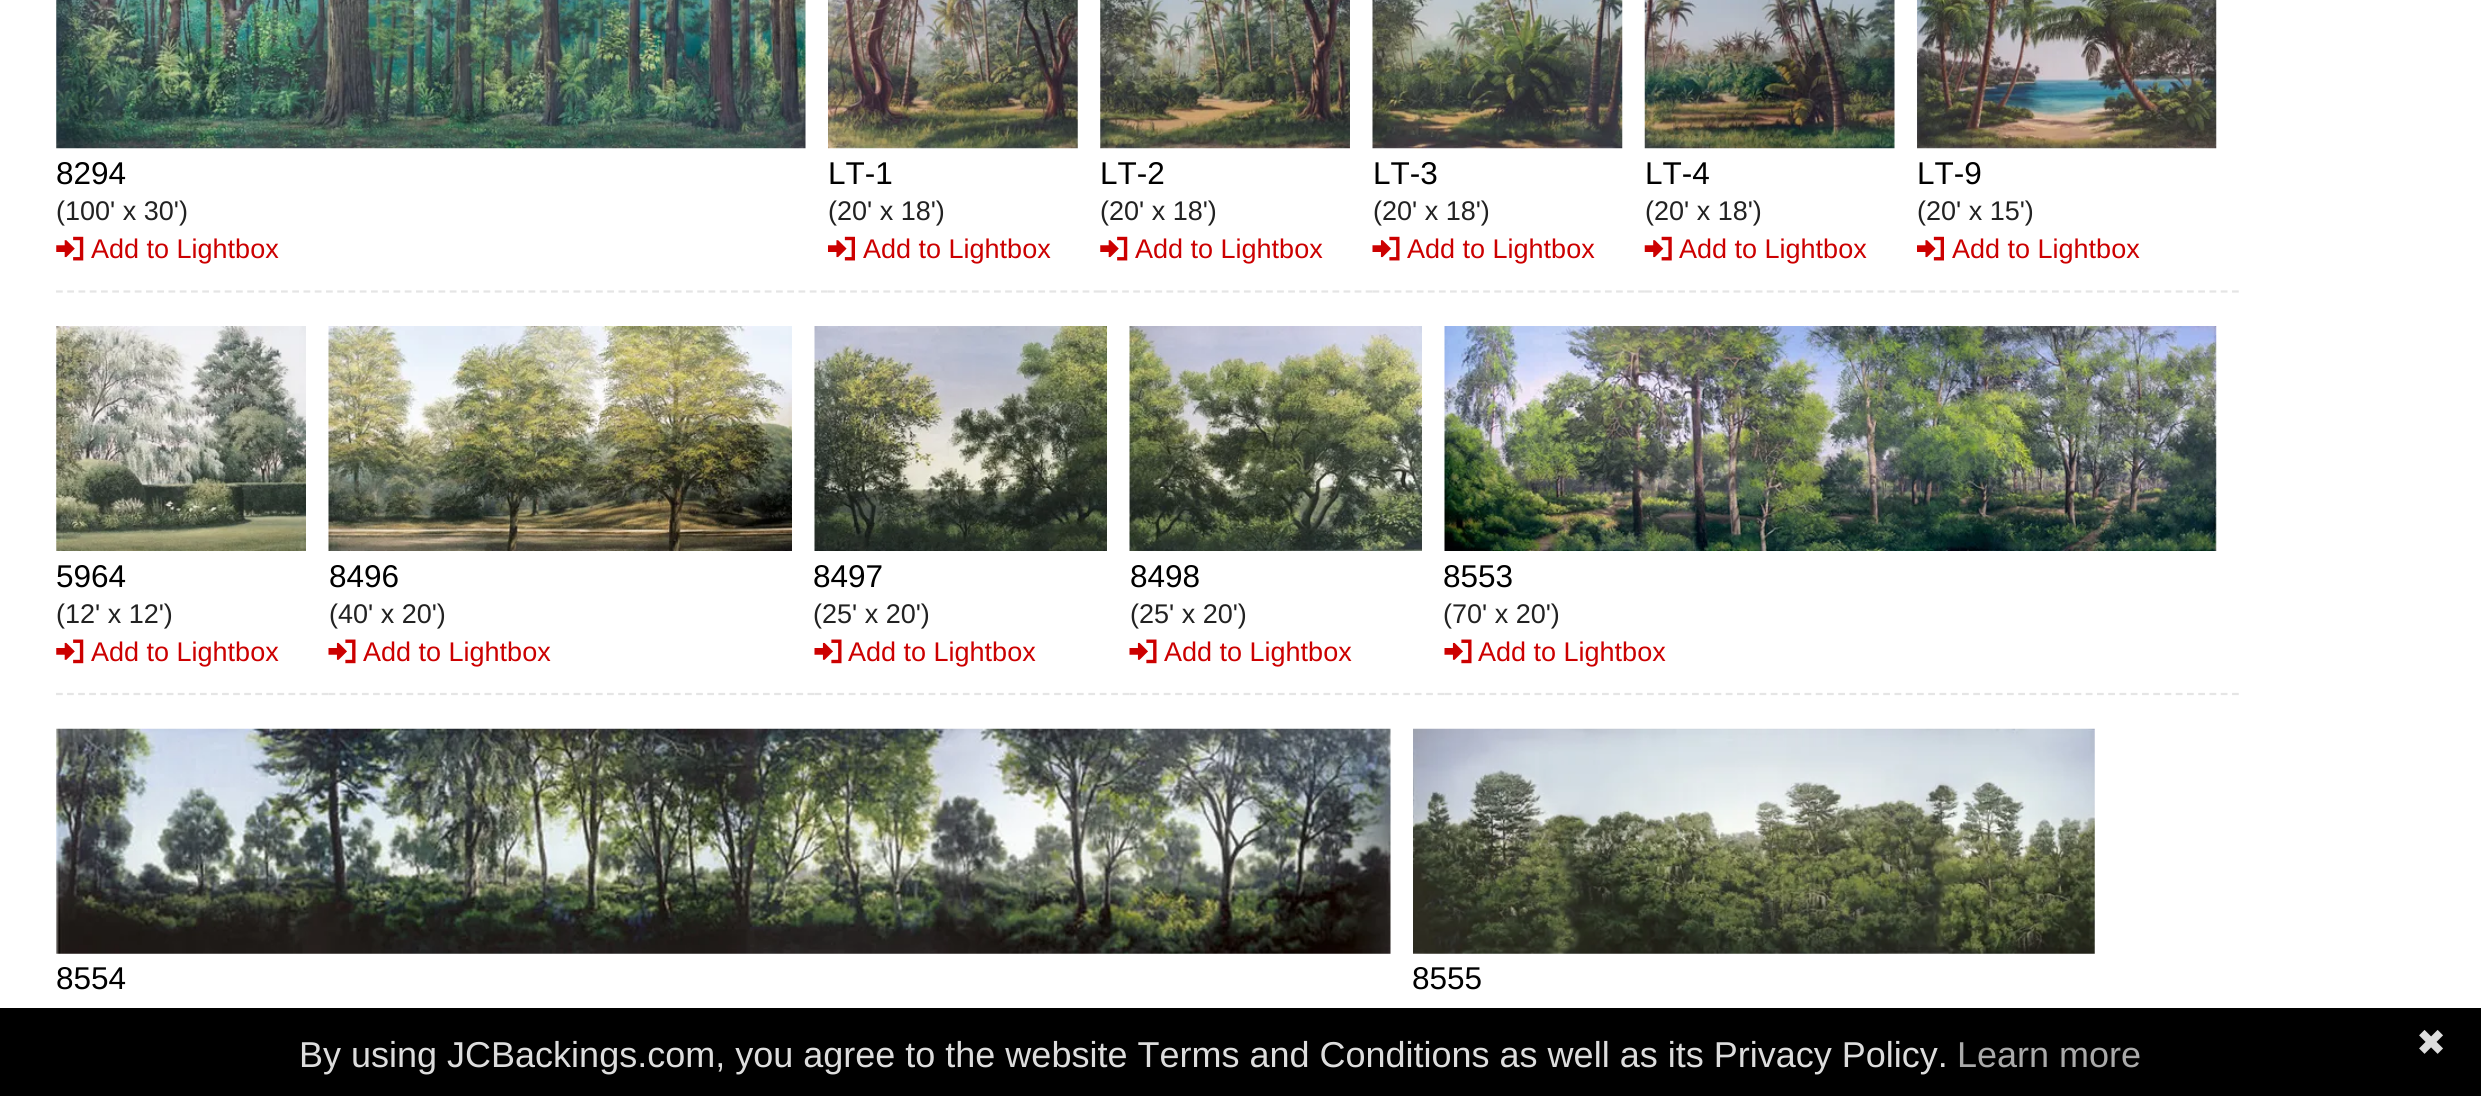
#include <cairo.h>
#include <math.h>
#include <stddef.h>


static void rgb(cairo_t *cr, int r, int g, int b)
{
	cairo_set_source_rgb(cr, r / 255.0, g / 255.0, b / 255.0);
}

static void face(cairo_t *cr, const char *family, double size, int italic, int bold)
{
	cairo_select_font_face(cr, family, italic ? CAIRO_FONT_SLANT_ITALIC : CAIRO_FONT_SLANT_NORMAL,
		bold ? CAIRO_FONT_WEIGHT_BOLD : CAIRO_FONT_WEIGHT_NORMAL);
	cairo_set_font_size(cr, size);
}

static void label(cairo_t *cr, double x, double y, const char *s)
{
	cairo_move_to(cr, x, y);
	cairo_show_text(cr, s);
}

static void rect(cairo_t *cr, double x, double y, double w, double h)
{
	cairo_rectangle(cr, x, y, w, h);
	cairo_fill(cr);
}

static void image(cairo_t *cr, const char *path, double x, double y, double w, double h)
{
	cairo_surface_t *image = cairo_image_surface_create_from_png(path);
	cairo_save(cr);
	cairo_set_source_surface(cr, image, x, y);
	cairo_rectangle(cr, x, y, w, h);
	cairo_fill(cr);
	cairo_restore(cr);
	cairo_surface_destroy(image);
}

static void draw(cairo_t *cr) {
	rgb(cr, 255, 255, 255);
	cairo_paint(cr);
	cairo_new_path(cr);
	cairo_move_to(cr, 56, 291.5);
	cairo_line_to(cr, 828, 291.5);
	rgb(cr, 229, 229, 229);
	cairo_set_line_width(cr, 2.2);
	cairo_set_dash(cr, (double[]){6.75, 4.5}, 2, 0);
	cairo_stroke(cr);
	image(cr, "image0.png", 56, 0, 750, 149);
	face(cr, "Liberation Sans", 31.5, 0, 0);
	rgb(cr, 0, 0, 0);
	label(cr, 56, 184, "8294");
	face(cr, "Liberation Sans", 27, 0, 0);
	rgb(cr, 34, 34, 34);
	label(cr, 56, 220, "(100' x 30')");
	image(cr, "image1.png", 56, 236, 28, 25);
	rgb(cr, 204, 0, 0);
	label(cr, 91, 258, "Add to Lightbox");
	cairo_new_path(cr);
	cairo_move_to(cr, 828, 291.5);
	cairo_line_to(cr, 1100, 291.5);
	rgb(cr, 229, 229, 229);
	cairo_set_dash(cr, (double[]){6.75, 4.32}, 2, 0);
	cairo_stroke(cr);
	image(cr, "image2.png", 828, 0, 250, 149);
	face(cr, "Liberation Sans", 31.5, 0, 0);
	rgb(cr, 0, 0, 0);
	label(cr, 828, 184, "LT-1");
	face(cr, "Liberation Sans", 27, 0, 0);
	rgb(cr, 34, 34, 34);
	label(cr, 828, 220, "(20' x 18')");
	image(cr, "image3.png", 828, 236, 27, 25);
	rgb(cr, 204, 0, 0);
	label(cr, 863, 258, "Add to Lightbox");
	cairo_new_path(cr);
	cairo_move_to(cr, 1100, 291.5);
	cairo_line_to(cr, 1372.5, 291.5);
	rgb(cr, 229, 229, 229);
	cairo_stroke(cr);
	image(cr, "image4.png", 1100, 0, 250, 149);
	face(cr, "Liberation Sans", 31.5, 0, 0);
	rgb(cr, 0, 0, 0);
	label(cr, 1100, 184, "LT-2");
	face(cr, "Liberation Sans", 27, 0, 0);
	rgb(cr, 34, 34, 34);
	label(cr, 1100, 220, "(20' x 18')");
	image(cr, "image1.png", 1100, 236, 28, 25);
	rgb(cr, 204, 0, 0);
	label(cr, 1135, 258, "Add to Lightbox");
	cairo_new_path(cr);
	cairo_move_to(cr, 1372.5, 291.5);
	cairo_line_to(cr, 1645, 291.5);
	rgb(cr, 229, 229, 229);
	cairo_stroke(cr);
	image(cr, "image5.png", 1372, 0, 251, 149);
	face(cr, "Liberation Sans", 31.5, 0, 0);
	rgb(cr, 0, 0, 0);
	label(cr, 1373, 184, "LT-3");
	face(cr, "Liberation Sans", 27, 0, 0);
	rgb(cr, 34, 34, 34);
	label(cr, 1373, 220, "(20' x 18')");
	image(cr, "image6.png", 1372, 236, 28, 25);
	rgb(cr, 204, 0, 0);
	label(cr, 1407, 258, "Add to Lightbox");
	cairo_new_path(cr);
	cairo_move_to(cr, 1645, 291.5);
	cairo_line_to(cr, 1917, 291.5);
	rgb(cr, 229, 229, 229);
	cairo_stroke(cr);
	image(cr, "image7.png", 1644, 0, 251, 149);
	face(cr, "Liberation Sans", 31.5, 0, 0);
	rgb(cr, 0, 0, 0);
	label(cr, 1645, 184, "LT-4");
	face(cr, "Liberation Sans", 27, 0, 0);
	rgb(cr, 34, 34, 34);
	label(cr, 1645, 220, "(20' x 18')");
	image(cr, "image8.png", 1644, 236, 28, 25);
	rgb(cr, 204, 0, 0);
	label(cr, 1679, 258, "Add to Lightbox");
	cairo_new_path(cr);
	cairo_move_to(cr, 1917, 291.5);
	cairo_line_to(cr, 2239, 291.5);
	rgb(cr, 229, 229, 229);
	cairo_set_dash(cr, (double[]){6.75, 4.5}, 2, 0);
	cairo_stroke(cr);
	image(cr, "image9.png", 1917, 0, 300, 149);
	face(cr, "Liberation Sans", 31.5, 0, 0);
	rgb(cr, 0, 0, 0);
	label(cr, 1917, 184, "LT-9");
	face(cr, "Liberation Sans", 27, 0, 0);
	rgb(cr, 34, 34, 34);
	label(cr, 1917, 220, "(20' x 15')");
	image(cr, "image3.png", 1917, 236, 27, 25);
	rgb(cr, 204, 0, 0);
	label(cr, 1952, 258, "Add to Lightbox");
	cairo_new_path(cr);
	cairo_move_to(cr, 56, 694);
	cairo_line_to(cr, 328.5, 694);
	rgb(cr, 229, 229, 229);
	cairo_set_dash(cr, (double[]){6.75, 4.32}, 2, 0);
	cairo_stroke(cr);
	image(cr, "image10.png", 56, 326, 250, 225);
	face(cr, "Liberation Sans", 31.5, 0, 0);
	rgb(cr, 0, 0, 0);
	label(cr, 56, 587, "5964");
	face(cr, "Liberation Sans", 27, 0, 0);
	rgb(cr, 34, 34, 34);
	label(cr, 56, 623, "(12' x 12')");
	image(cr, "image11.png", 56, 639, 28, 25);
	rgb(cr, 204, 0, 0);
	label(cr, 91, 661, "Add to Lightbox");
	cairo_new_path(cr);
	cairo_move_to(cr, 328.5, 694);
	cairo_line_to(cr, 814.5, 694);
	rgb(cr, 229, 229, 229);
	cairo_set_dash(cr, (double[]){6.75, 4.39}, 2, 0);
	cairo_stroke(cr);
	image(cr, "image12.png", 328, 326, 464, 225);
	face(cr, "Liberation Sans", 31.5, 0, 0);
	rgb(cr, 0, 0, 0);
	label(cr, 329, 587, "8496");
	face(cr, "Liberation Sans", 27, 0, 0);
	rgb(cr, 34, 34, 34);
	label(cr, 329, 623, "(40' x 20')");
	image(cr, "image13.png", 328, 639, 28, 25);
	rgb(cr, 204, 0, 0);
	label(cr, 363, 661, "Add to Lightbox");
	cairo_new_path(cr);
	cairo_move_to(cr, 814.5, 694);
	cairo_line_to(cr, 1129.5, 694);
	rgb(cr, 229, 229, 229);
	cairo_set_dash(cr, (double[]){6.75, 4.66}, 2, 0);
	cairo_stroke(cr);
	image(cr, "image14.png", 814, 326, 293, 225);
	face(cr, "Liberation Sans", 31.5, 0, 0);
	rgb(cr, 0, 0, 0);
	label(cr, 813, 587, "8497");
	face(cr, "Liberation Sans", 27, 0, 0);
	rgb(cr, 34, 34, 34);
	label(cr, 813, 623, "(25' x 20')");
	image(cr, "image13.png", 814, 639, 28, 25);
	rgb(cr, 204, 0, 0);
	label(cr, 848, 661, "Add to Lightbox");
	cairo_new_path(cr);
	cairo_move_to(cr, 1129.5, 694);
	cairo_line_to(cr, 1444.5, 694);
	rgb(cr, 229, 229, 229);
	cairo_stroke(cr);
	image(cr, "image15.png", 1129, 326, 293, 225);
	face(cr, "Liberation Sans", 31.5, 0, 0);
	rgb(cr, 0, 0, 0);
	label(cr, 1130, 587, "8498");
	face(cr, "Liberation Sans", 27, 0, 0);
	rgb(cr, 34, 34, 34);
	label(cr, 1130, 623, "(25' x 20')");
	image(cr, "image13.png", 1129, 639, 28, 25);
	rgb(cr, 204, 0, 0);
	label(cr, 1164, 661, "Add to Lightbox");
	cairo_new_path(cr);
	cairo_move_to(cr, 1444.5, 694);
	cairo_line_to(cr, 2239, 694);
	rgb(cr, 229, 229, 229);
	cairo_set_dash(cr, (double[]){6.75, 4.5}, 2, 0);
	cairo_stroke(cr);
	image(cr, "image16.png", 1444, 326, 773, 225);
	face(cr, "Liberation Sans", 31.5, 0, 0);
	rgb(cr, 0, 0, 0);
	label(cr, 1443, 587, "8553");
	face(cr, "Liberation Sans", 27, 0, 0);
	rgb(cr, 34, 34, 34);
	label(cr, 1443, 623, "(70' x 20')");
	image(cr, "image13.png", 1444, 639, 28, 25);
	rgb(cr, 204, 0, 0);
	label(cr, 1478, 661, "Add to Lightbox");
	image(cr, "image17.png", 56, 728, 1335, 226);
	face(cr, "Liberation Sans", 31.5, 0, 0);
	rgb(cr, 0, 0, 0);
	label(cr, 56, 989, "8554");
	image(cr, "image18.png", 1413, 728, 682, 226);
	label(cr, 1412, 989, "8555");
	rect(cr, 0, 1008, 2481, 88);
	face(cr, "Liberation Sans", 36, 0, 0);
	rgb(cr, 221, 221, 221);
	label(cr, 299, 1067, "By using JCBackings.com, you agree to the website Terms and Conditions as well as its Privacy Policy.");
	rgb(cr, 170, 170, 170);
	label(cr, 1957, 1067, "Learn more");
	face(cr, "DejaVu Sans", 36, 0, 0);
	rgb(cr, 221, 221, 221);
	label(cr, 2416, 1055, "✖");
}

int main(void) {
	cairo_surface_t *surface = cairo_image_surface_create(CAIRO_FORMAT_RGB24, 2481, 1096);
	cairo_t *cr = cairo_create(surface);
	cairo_font_options_t *options = cairo_font_options_create();
	cairo_font_options_set_hint_metrics(options, CAIRO_HINT_METRICS_OFF);
	cairo_font_options_set_hint_style(options, CAIRO_HINT_STYLE_NONE);
	cairo_set_font_options(cr, options);
	cairo_set_miter_limit(cr, 4);
	draw(cr);
	cairo_surface_write_to_png(surface, "render.png");
	cairo_font_options_destroy(options);
	cairo_destroy(cr);
	cairo_surface_destroy(surface);
	return 0;
}
